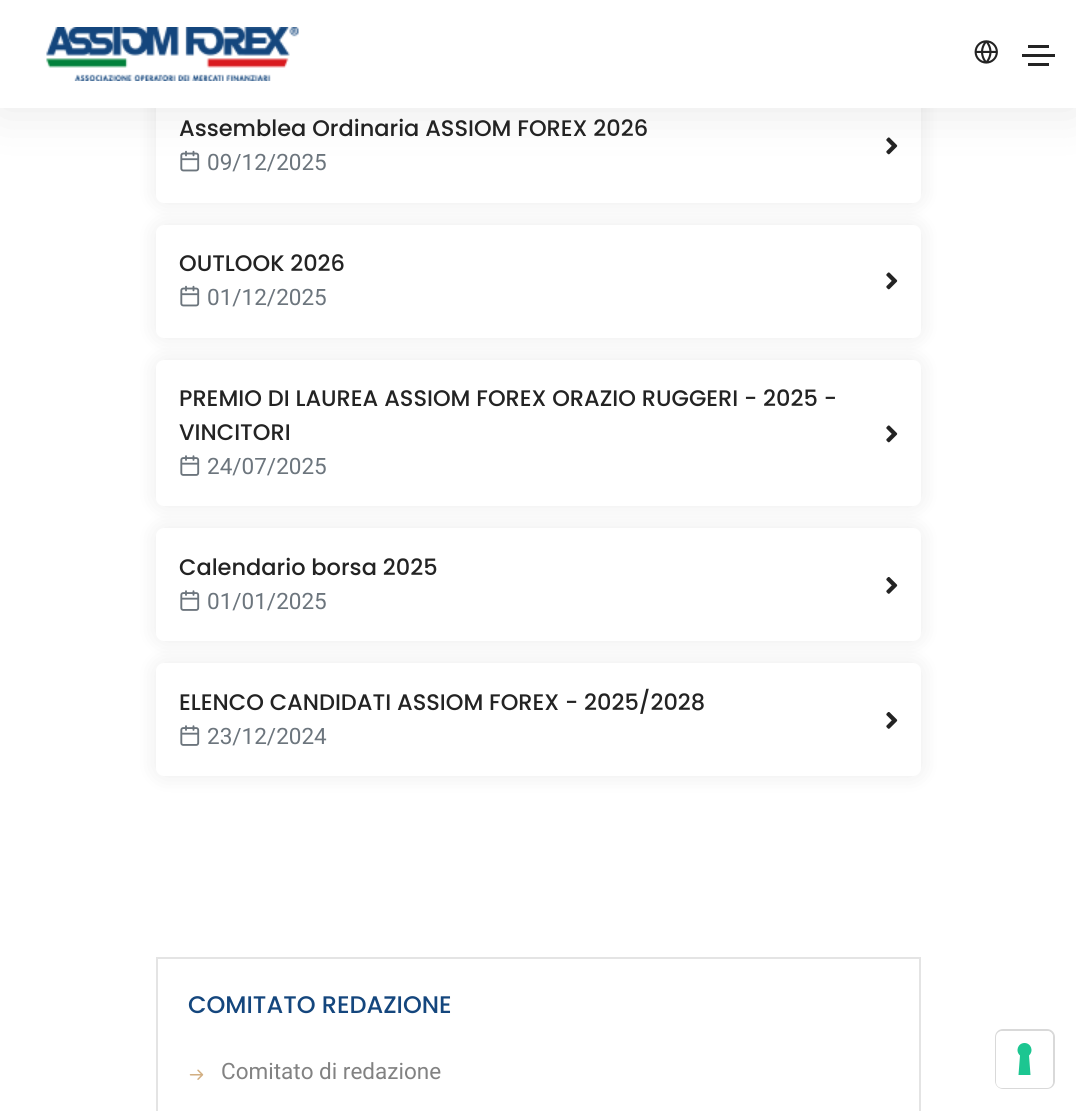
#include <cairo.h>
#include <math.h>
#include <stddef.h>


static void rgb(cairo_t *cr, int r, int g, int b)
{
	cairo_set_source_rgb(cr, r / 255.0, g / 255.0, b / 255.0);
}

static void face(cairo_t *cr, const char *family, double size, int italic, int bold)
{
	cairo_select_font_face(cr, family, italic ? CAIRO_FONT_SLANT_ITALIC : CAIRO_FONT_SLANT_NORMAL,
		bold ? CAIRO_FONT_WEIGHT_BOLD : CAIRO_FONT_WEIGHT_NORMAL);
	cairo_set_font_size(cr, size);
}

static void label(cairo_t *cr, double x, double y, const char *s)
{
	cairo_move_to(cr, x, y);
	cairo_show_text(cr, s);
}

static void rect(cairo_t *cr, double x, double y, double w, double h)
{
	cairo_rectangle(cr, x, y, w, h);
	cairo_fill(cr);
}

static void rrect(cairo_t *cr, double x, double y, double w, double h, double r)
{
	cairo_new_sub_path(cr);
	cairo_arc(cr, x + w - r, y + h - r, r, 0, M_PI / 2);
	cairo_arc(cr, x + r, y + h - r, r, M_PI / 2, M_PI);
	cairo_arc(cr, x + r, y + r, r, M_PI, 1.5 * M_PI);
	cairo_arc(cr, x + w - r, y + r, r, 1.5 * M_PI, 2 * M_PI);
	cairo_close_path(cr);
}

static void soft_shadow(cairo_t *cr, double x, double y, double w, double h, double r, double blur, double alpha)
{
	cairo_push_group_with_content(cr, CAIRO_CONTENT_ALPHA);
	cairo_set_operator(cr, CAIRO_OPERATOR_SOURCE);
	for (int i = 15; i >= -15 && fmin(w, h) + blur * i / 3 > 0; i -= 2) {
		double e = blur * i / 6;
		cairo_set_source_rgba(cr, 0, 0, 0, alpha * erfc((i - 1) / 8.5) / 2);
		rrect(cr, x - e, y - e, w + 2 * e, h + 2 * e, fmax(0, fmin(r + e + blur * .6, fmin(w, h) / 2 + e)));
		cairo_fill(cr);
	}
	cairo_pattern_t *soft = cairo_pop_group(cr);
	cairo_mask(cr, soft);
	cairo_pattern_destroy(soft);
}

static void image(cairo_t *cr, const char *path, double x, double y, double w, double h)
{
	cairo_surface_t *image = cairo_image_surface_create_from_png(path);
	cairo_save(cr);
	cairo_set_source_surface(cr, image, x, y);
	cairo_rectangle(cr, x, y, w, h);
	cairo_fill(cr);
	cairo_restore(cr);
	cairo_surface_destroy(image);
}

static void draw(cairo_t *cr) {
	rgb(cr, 255, 255, 255);
	cairo_paint(cr);
	rgb(cr, 0, 0, 0);
	soft_shadow(cr, 156, 90, 765, 113, 8, 11, 0.08);
	rgb(cr, 255, 255, 255);
	rrect(cr, 156, 90, 765, 113, 8);
	cairo_fill(cr);
	image(cr, "image2.png", 886, 137, 12, 18);
	image(cr, "image3.png", 180, 150, 20, 22);
	rgb(cr, 0, 0, 0);
	soft_shadow(cr, 0, 0, 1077, 108, 0, 26, 0.1);
	rgb(cr, 255, 255, 255);
	rect(cr, 0, 0, 1076, 108);
	image(cr, "image0.png", 46, 27, 253, 54);
	image(cr, "image1.png", 974, 40, 24, 24);
	rgb(cr, 35, 35, 35);
	rect(cr, 1028, 45, 21, 3);
	rect(cr, 1022, 54, 33, 3);
	rect(cr, 1028, 63, 21, 3);
	face(cr, "Poppins Medium", 22.5, 0, 0);
	label(cr, 179, 136, "Assemblea Ordinaria ASSIOM FOREX 2026");
	face(cr, "Roboto", 22.5, 0, 0);
	rgb(cr, 108, 117, 125);
	label(cr, 207, 170, "09/12/2025");
	rgb(cr, 0, 0, 0);
	soft_shadow(cr, 156, 225, 765, 113, 8, 11, 0.08);
	rgb(cr, 255, 255, 255);
	rrect(cr, 156, 225, 765, 113, 8);
	cairo_fill(cr);
	face(cr, "Poppins Medium", 22.5, 0, 0);
	rgb(cr, 35, 35, 35);
	label(cr, 179, 271, "OUTLOOK 2026");
	image(cr, "image2.png", 886, 272, 12, 18);
	image(cr, "image3.png", 180, 285, 20, 22);
	face(cr, "Roboto", 22.5, 0, 0);
	rgb(cr, 108, 117, 125);
	label(cr, 207, 305, "01/12/2025");
	rgb(cr, 0, 0, 0);
	soft_shadow(cr, 156, 360, 765, 146, 8, 11, 0.08);
	rgb(cr, 255, 255, 255);
	rrect(cr, 156, 360, 765, 146, 8);
	cairo_fill(cr);
	face(cr, "Poppins Medium", 22.5, 0, 0);
	rgb(cr, 35, 35, 35);
	label(cr, 179, 406, "PREMIO DI LAUREA ASSIOM FOREX ORAZIO RUGGERI - 2025 -");
	label(cr, 179, 440, "VINCITORI");
	image(cr, "image2.png", 886, 425, 12, 18);
	image(cr, "image4.png", 180, 455, 20, 21);
	face(cr, "Roboto", 22.5, 0, 0);
	rgb(cr, 108, 117, 125);
	label(cr, 207, 474, "24/07/2025");
	rgb(cr, 0, 0, 0);
	soft_shadow(cr, 156, 528, 765, 113, 8, 11, 0.08);
	rgb(cr, 255, 255, 255);
	rrect(cr, 156, 528, 765, 113, 8);
	cairo_fill(cr);
	face(cr, "Poppins Medium", 22.5, 0, 0);
	rgb(cr, 35, 35, 35);
	label(cr, 179, 575, "Calendario borsa 2025");
	image(cr, "image5.png", 886, 577, 12, 17);
	image(cr, "image4.png", 180, 590, 20, 21);
	face(cr, "Roboto", 22.5, 0, 0);
	rgb(cr, 108, 117, 125);
	label(cr, 207, 609, "01/01/2025");
	rgb(cr, 0, 0, 0);
	soft_shadow(cr, 156, 663, 765, 113, 8, 11, 0.08);
	rgb(cr, 255, 255, 255);
	rrect(cr, 156, 663, 765, 113, 8);
	cairo_fill(cr);
	face(cr, "Poppins Medium", 22.5, 0, 0);
	rgb(cr, 35, 35, 35);
	label(cr, 179, 710, "ELENCO CANDIDATI ASSIOM FOREX - 2025/2028");
	image(cr, "image5.png", 886, 712, 12, 17);
	image(cr, "image4.png", 180, 725, 20, 21);
	face(cr, "Roboto", 22.5, 0, 0);
	rgb(cr, 108, 117, 125);
	label(cr, 207, 744, "23/12/2024");
	cairo_rectangle(cr, 157, 958, 763, 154);
	rgb(cr, 228, 228, 228);
	cairo_stroke(cr);
	face(cr, "Poppins Medium", 24, 0, 0);
	rgb(cr, 20, 70, 125);
	label(cr, 188, 1013, "COMITATO REDAZIONE");
	image(cr, "image6.png", 189, 1069, 15, 11);
	face(cr, "Roboto", 22.5, 0, 0);
	rgb(cr, 130, 130, 130);
	label(cr, 221, 1079, "Comitato di redazione");
	rrect(cr, 996, 1030, 58, 58, 7);
	rgb(cr, 217, 217, 217);
	cairo_stroke(cr);
	rgb(cr, 255, 255, 255);
	rrect(cr, 996, 1031, 57, 57, 6);
	cairo_fill(cr);
	rgb(cr, 28, 198, 145);
	cairo_set_fill_rule(cr, CAIRO_FILL_RULE_EVEN_ODD);
	cairo_new_path(cr);
	cairo_move_to(cr, 1024.5, 1043);
	cairo_curve_to(cr, 1031, 1043, 1034, 1051, 1029, 1055.5);
	cairo_line_to(cr, 1030.5, 1075);
	cairo_line_to(cr, 1018.5, 1075);
	cairo_line_to(cr, 1020, 1055.5);
	cairo_curve_to(cr, 1015, 1051, 1018, 1043, 1024.5, 1043);
	cairo_close_path(cr);
	cairo_fill(cr);
}

int main(void) {
	cairo_surface_t *surface = cairo_image_surface_create(CAIRO_FORMAT_RGB24, 1076, 1111);
	cairo_t *cr = cairo_create(surface);
	cairo_font_options_t *options = cairo_font_options_create();
	cairo_font_options_set_hint_metrics(options, CAIRO_HINT_METRICS_OFF);
	cairo_font_options_set_hint_style(options, CAIRO_HINT_STYLE_NONE);
	cairo_set_font_options(cr, options);
	cairo_set_miter_limit(cr, 4);
	draw(cr);
	cairo_surface_write_to_png(surface, "render.png");
	cairo_font_options_destroy(options);
	cairo_destroy(cr);
	cairo_surface_destroy(surface);
	return 0;
}
